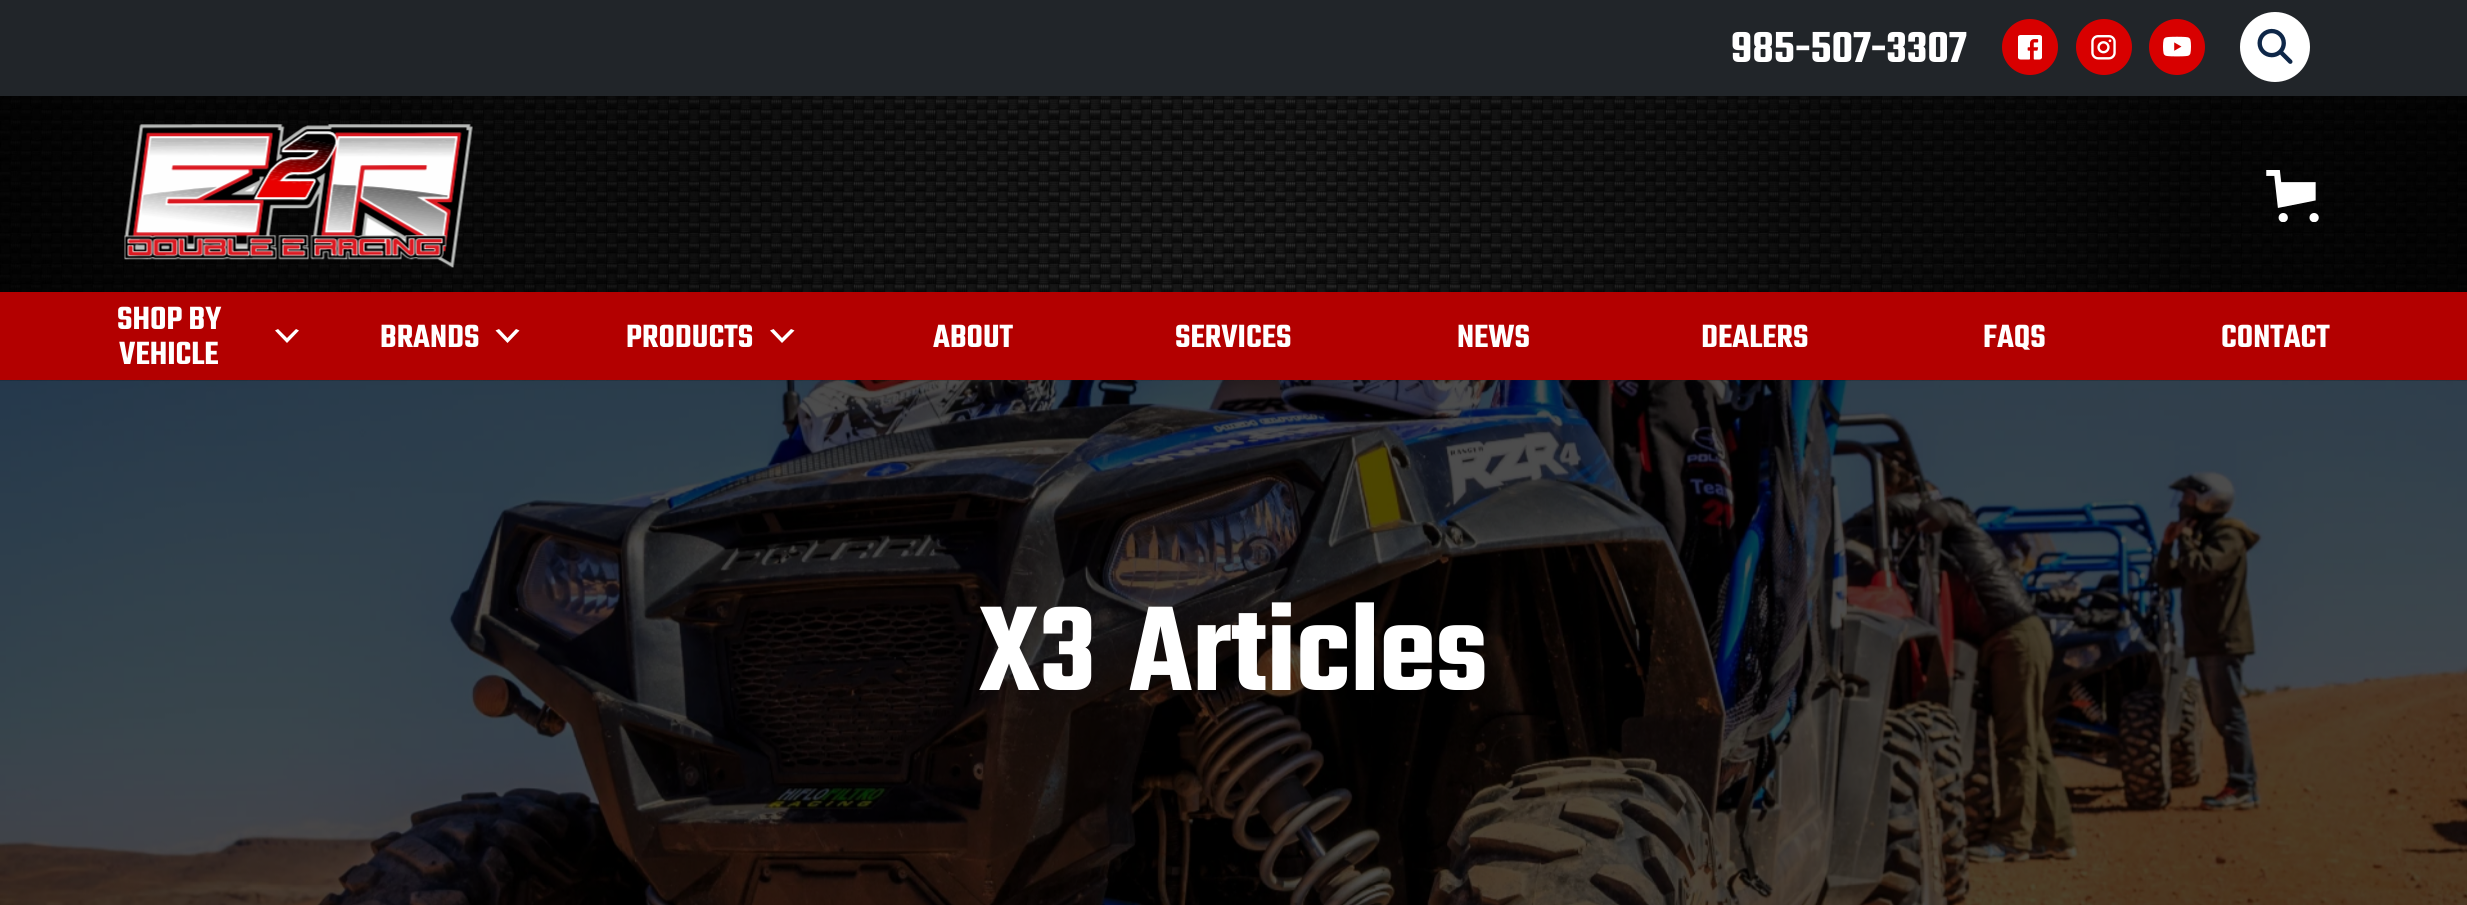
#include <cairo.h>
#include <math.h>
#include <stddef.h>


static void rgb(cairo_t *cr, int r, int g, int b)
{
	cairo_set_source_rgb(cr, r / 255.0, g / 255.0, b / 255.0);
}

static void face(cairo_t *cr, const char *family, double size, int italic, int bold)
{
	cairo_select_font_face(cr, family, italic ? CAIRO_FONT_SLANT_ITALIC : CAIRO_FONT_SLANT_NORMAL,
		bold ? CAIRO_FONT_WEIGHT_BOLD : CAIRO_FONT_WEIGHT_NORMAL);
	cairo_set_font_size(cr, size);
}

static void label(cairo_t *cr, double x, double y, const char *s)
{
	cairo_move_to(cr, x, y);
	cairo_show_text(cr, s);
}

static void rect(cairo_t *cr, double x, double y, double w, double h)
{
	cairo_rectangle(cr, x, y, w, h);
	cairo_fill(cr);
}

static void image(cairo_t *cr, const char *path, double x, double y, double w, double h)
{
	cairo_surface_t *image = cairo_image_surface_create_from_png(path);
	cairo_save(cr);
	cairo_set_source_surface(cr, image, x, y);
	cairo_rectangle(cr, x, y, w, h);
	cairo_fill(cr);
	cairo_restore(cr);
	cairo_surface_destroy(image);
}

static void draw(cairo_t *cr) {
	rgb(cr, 255, 255, 255);
	cairo_paint(cr);
	rgb(cr, 33, 37, 41);
	rect(cr, 0, 0, 2467, 96);
	face(cr, "Teko SemiBold", 47.25, 0, 0);
	rgb(cr, 255, 255, 255);
	label(cr, 1731, 62, "985-507-3307");
	rgb(cr, 216, 0, 0);
	cairo_new_path(cr);
	cairo_arc(cr, 2030, 47, 28, 0, 2 * M_PI);
	cairo_fill(cr);
	image(cr, "image0.png", 2018, 35, 24, 25);
	cairo_arc(cr, 2104, 47, 28, 0, 2 * M_PI);
	cairo_fill(cr);
	image(cr, "image1.png", 2091, 35, 25, 25);
	cairo_arc(cr, 2177, 47, 28, 0, 2 * M_PI);
	cairo_fill(cr);
	image(cr, "image2.png", 2163, 36, 28, 21);
	rgb(cr, 255, 255, 255);
	cairo_arc(cr, 2275, 47, 33, 0, 2 * M_PI);
	cairo_fill_preserve(cr);
	cairo_set_line_width(cr, 4);
	cairo_stroke(cr);
	image(cr, "image3.png", 2257, 28, 36, 36);
	image(cr, "image7.png", 0, 380, 2467, 525);
	image(cr, "image4.png", 0, 96, 2467, 285);
	image(cr, "image5.png", 124, 124, 349, 144);
	image(cr, "image6.png", 2266, 170, 53, 52);
	rgb(cr, 179, 0, 0);
	rect(cr, 0, 292, 2467, 88);
	face(cr, "Teko SemiBold", 35, 0, 0);
	rgb(cr, 255, 255, 255);
	label(cr, 117, 329, "SHOP BY");
	cairo_new_path(cr);
	cairo_move_to(cr, 278, 329);
	cairo_line_to(cr, 287, 338);
	cairo_line_to(cr, 296, 329);
	cairo_line_to(cr, 299, 330.5);
	cairo_line_to(cr, 287, 343);
	cairo_line_to(cr, 275, 330.5);
	cairo_close_path(cr);
	cairo_fill(cr);
	label(cr, 119, 364, "VEHICLE");
	label(cr, 380, 347, "BRANDS");
	cairo_new_path(cr);
	cairo_move_to(cr, 499, 329);
	cairo_line_to(cr, 507.5, 338);
	cairo_line_to(cr, 516, 329);
	cairo_line_to(cr, 519.5, 330.5);
	cairo_line_to(cr, 507.5, 343);
	cairo_line_to(cr, 495.5, 330.5);
	cairo_close_path(cr);
	cairo_fill(cr);
	label(cr, 626, 347, "PRODUCTS");
	cairo_new_path(cr);
	cairo_move_to(cr, 773.5, 329);
	cairo_line_to(cr, 782, 338);
	cairo_line_to(cr, 791, 329);
	cairo_line_to(cr, 794.5, 330.5);
	cairo_line_to(cr, 782, 343);
	cairo_line_to(cr, 770, 330.5);
	cairo_close_path(cr);
	cairo_fill(cr);
	label(cr, 933, 347, "ABOUT");
	label(cr, 1175, 347, "SERVICES");
	label(cr, 1457, 347, "NEWS");
	label(cr, 1701, 347, "DEALERS");
	label(cr, 1983, 347, "FAQS");
	label(cr, 2221, 347, "CONTACT");
	face(cr, "Teko SemiBold", 131, 0, 0);
	label(cr, 979, 690, "X3");
	label(cr, 1129, 690, "Articles");
}

int main(void) {
	cairo_surface_t *surface = cairo_image_surface_create(CAIRO_FORMAT_RGB24, 2467, 905);
	cairo_t *cr = cairo_create(surface);
	cairo_font_options_t *options = cairo_font_options_create();
	cairo_font_options_set_hint_metrics(options, CAIRO_HINT_METRICS_OFF);
	cairo_font_options_set_hint_style(options, CAIRO_HINT_STYLE_NONE);
	cairo_set_font_options(cr, options);
	cairo_set_miter_limit(cr, 4);
	draw(cr);
	cairo_surface_write_to_png(surface, "render.png");
	cairo_font_options_destroy(options);
	cairo_destroy(cr);
	cairo_surface_destroy(surface);
	return 0;
}
